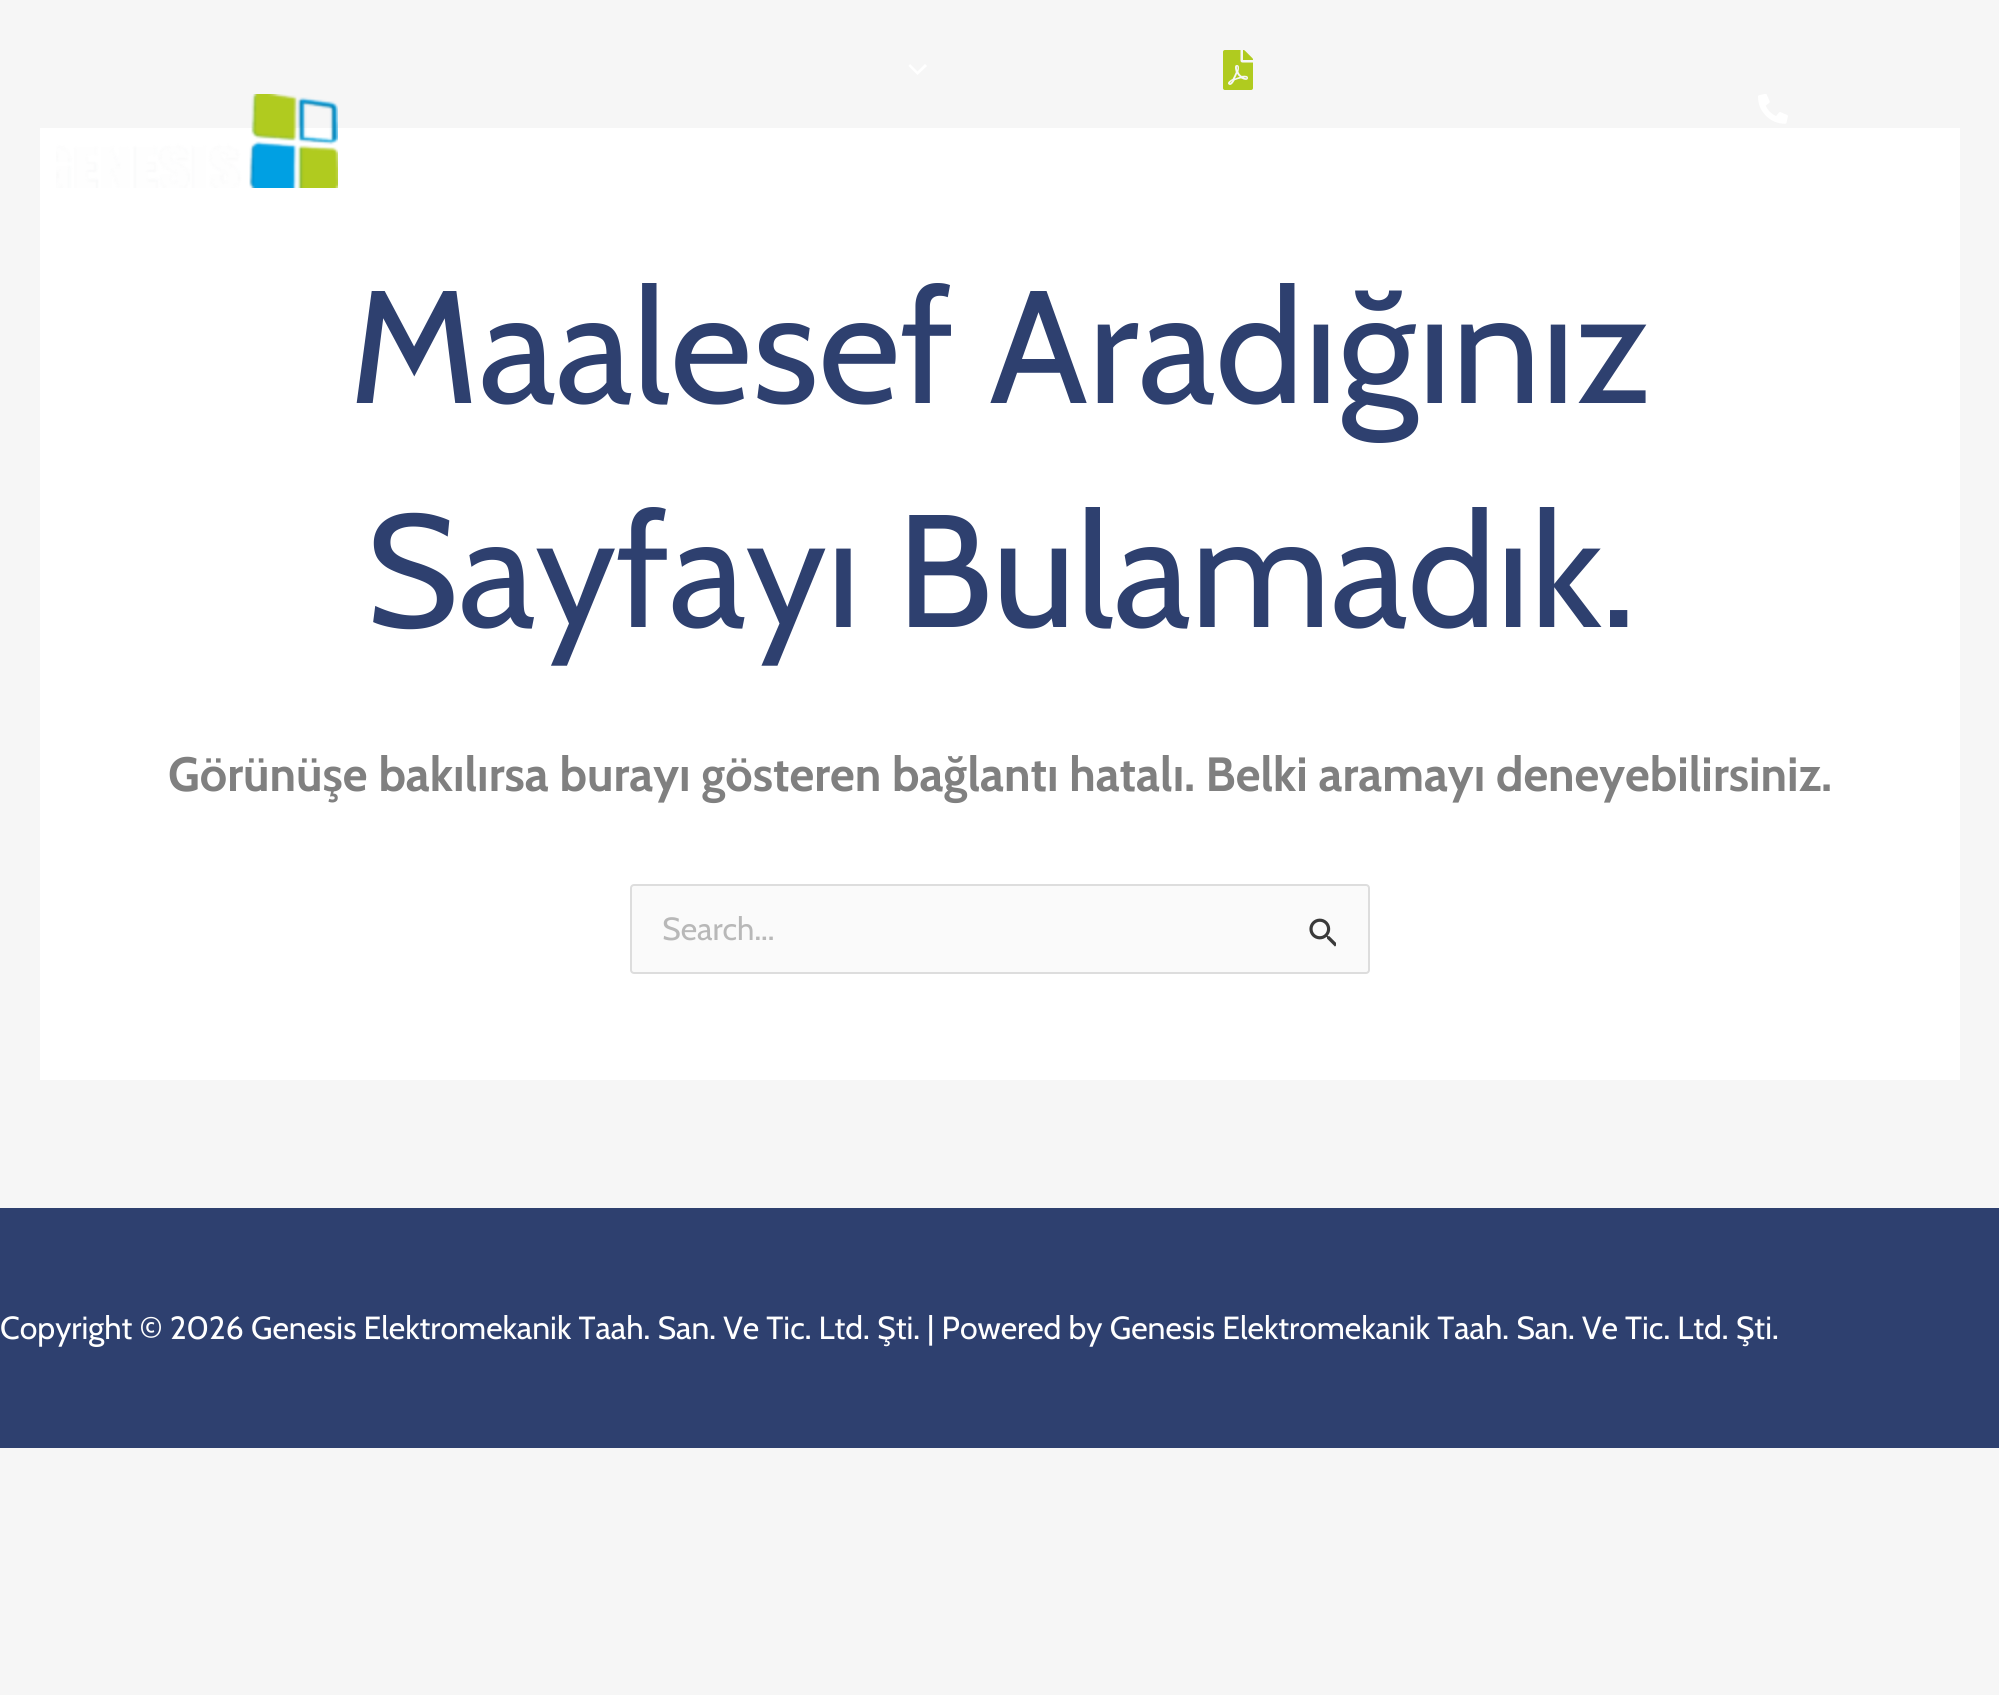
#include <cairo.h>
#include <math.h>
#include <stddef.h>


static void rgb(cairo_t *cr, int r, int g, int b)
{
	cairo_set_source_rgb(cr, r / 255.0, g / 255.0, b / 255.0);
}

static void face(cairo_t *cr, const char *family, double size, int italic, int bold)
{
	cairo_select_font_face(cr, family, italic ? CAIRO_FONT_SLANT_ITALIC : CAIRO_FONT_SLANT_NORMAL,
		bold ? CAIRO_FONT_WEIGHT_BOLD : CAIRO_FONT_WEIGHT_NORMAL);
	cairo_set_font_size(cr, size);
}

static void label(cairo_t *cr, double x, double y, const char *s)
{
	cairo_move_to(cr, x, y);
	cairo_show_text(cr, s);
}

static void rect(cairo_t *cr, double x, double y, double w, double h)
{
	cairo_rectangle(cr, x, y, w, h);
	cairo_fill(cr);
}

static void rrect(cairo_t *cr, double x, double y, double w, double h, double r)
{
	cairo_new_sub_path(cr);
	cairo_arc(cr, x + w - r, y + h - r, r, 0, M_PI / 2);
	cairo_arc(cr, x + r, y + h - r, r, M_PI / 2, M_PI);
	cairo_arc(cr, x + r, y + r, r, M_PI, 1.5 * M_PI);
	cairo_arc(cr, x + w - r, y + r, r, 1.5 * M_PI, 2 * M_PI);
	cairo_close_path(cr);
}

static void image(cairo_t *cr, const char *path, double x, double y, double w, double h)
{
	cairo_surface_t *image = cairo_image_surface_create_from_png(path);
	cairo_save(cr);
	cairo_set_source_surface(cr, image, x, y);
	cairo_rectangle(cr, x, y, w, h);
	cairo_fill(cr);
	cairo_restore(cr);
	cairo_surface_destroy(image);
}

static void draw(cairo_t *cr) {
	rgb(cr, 246, 246, 246);
	cairo_paint(cr);
	rgb(cr, 255, 255, 255);
	rect(cr, 40, 128, 1920, 952);
	image(cr, "image0.png", 56, 94, 282, 94);
	cairo_new_path(cr);
	cairo_move_to(cr, 908.5, 66);
	cairo_line_to(cr, 917.5, 75);
	cairo_line_to(cr, 927, 66);
	cairo_line_to(cr, 925, 64);
	cairo_line_to(cr, 917.5, 71.5);
	cairo_line_to(cr, 910, 64);
	cairo_close_path(cr);
	cairo_fill(cr);
	image(cr, "image1.png", 1223, 50, 30, 40);
	image(cr, "image2.png", 1758, 94, 30, 30);
	face(cr, "Cabin", 160, 0, 0);
	rgb(cr, 46, 64, 111);
	label(cr, 349, 403, "Maalesef Aradığınız");
	label(cr, 365, 627, "Sayfayı Bulamadık.");
	face(cr, "Cabin", 48, 0, 1);
	rgb(cr, 128, 128, 128);
	label(cr, 168, 791, "Görünüşe bakılırsa burayı gösteren bağlantı hatalı. Belki aramayı deneyebilirsiniz.");
	rgb(cr, 250, 250, 250);
	rrect(cr, 631, 885, 738, 88, 3);
	cairo_fill_preserve(cr);
	rgb(cr, 221, 221, 221);
	cairo_stroke(cr);
	face(cr, "Cabin", 32, 0, 0);
	rgb(cr, 184, 184, 184);
	label(cr, 662, 940, "Search...");
	image(cr, "image3.png", 1309, 918, 27, 29);
	rgb(cr, 46, 64, 111);
	rect(cr, 0, 1208, 1999, 240);
	rgb(cr, 255, 255, 255);
	label(cr, 0, 1339, "Copyright © 2026 Genesis Elektromekanik Taah. San. Ve Tic. Ltd. Şti. | Powered by Genesis Elektromekanik Taah. San. Ve Tic. Ltd. Şti.");
}

int main(void) {
	cairo_surface_t *surface = cairo_image_surface_create(CAIRO_FORMAT_RGB24, 1999, 1695);
	cairo_t *cr = cairo_create(surface);
	cairo_font_options_t *options = cairo_font_options_create();
	cairo_font_options_set_hint_metrics(options, CAIRO_HINT_METRICS_OFF);
	cairo_font_options_set_hint_style(options, CAIRO_HINT_STYLE_NONE);
	cairo_set_font_options(cr, options);
	cairo_set_miter_limit(cr, 4);
	draw(cr);
	cairo_surface_write_to_png(surface, "render.png");
	cairo_font_options_destroy(options);
	cairo_destroy(cr);
	cairo_surface_destroy(surface);
	return 0;
}
